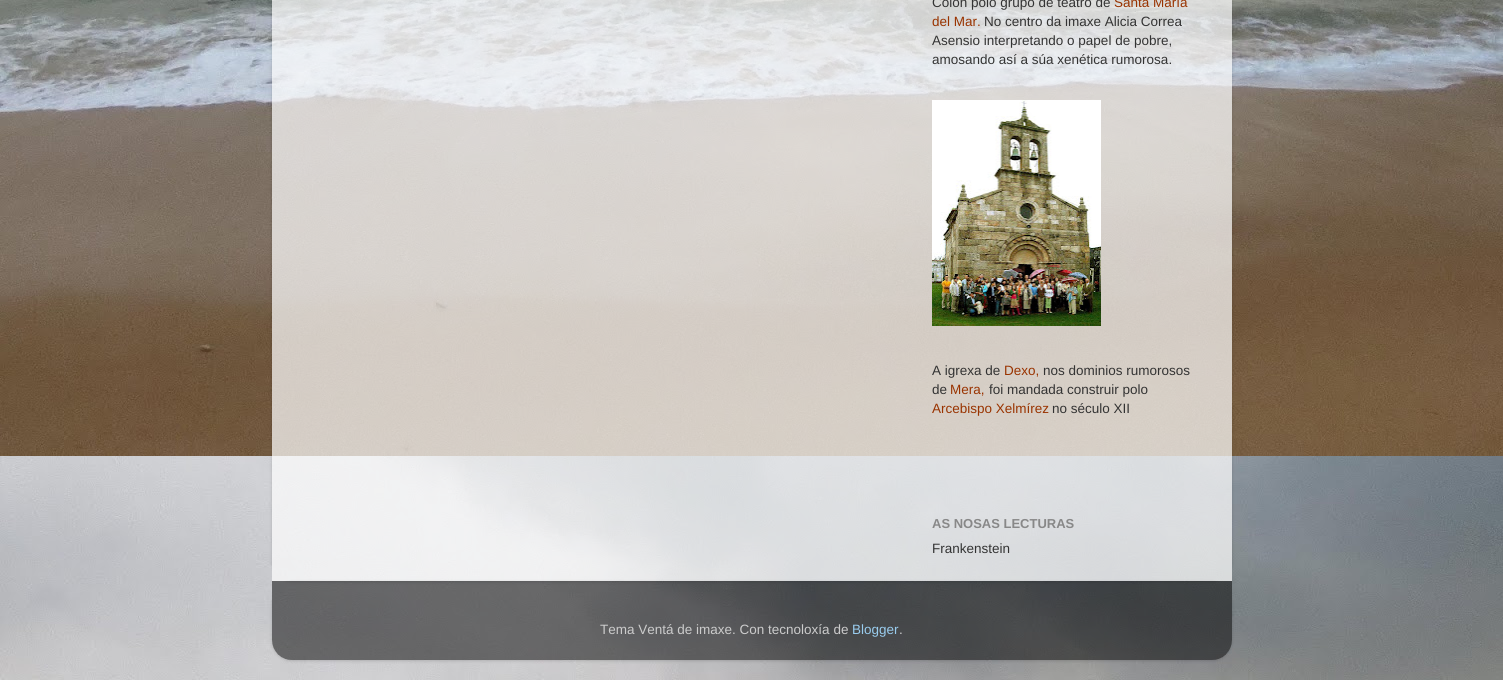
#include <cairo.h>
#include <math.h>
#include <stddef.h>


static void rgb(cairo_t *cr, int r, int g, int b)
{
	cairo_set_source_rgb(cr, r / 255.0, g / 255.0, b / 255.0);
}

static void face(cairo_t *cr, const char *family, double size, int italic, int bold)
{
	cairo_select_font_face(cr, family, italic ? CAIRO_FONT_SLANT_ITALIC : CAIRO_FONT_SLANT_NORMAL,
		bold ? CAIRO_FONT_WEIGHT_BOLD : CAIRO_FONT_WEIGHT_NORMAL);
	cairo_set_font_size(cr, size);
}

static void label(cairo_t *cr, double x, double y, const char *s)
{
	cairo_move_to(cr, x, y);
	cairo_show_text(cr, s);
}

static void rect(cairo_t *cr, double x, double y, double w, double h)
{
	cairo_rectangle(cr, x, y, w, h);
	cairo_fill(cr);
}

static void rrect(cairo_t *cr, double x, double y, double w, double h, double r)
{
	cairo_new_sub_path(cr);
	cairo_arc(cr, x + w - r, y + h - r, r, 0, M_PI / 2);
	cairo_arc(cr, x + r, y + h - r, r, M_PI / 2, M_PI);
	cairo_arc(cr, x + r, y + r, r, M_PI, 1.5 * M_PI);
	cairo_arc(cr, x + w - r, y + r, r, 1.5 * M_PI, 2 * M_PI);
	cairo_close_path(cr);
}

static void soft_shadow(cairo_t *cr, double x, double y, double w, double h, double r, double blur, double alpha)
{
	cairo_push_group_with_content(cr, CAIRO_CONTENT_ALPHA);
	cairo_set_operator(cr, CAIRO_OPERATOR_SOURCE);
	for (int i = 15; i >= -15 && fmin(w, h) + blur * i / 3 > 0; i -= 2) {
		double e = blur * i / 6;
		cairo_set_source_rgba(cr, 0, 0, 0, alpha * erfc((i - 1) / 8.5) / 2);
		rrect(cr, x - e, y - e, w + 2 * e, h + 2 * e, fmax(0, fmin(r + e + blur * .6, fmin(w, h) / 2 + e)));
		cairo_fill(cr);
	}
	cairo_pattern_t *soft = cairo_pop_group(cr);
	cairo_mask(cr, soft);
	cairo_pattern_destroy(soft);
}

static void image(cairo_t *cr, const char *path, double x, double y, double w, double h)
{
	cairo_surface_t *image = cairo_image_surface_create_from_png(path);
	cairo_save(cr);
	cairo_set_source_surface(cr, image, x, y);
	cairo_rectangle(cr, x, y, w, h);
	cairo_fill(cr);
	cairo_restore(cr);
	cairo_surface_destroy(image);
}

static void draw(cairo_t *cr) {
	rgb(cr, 255, 255, 255);
	cairo_paint(cr);
	image(cr, "image0.png", 0, 0, 1503, 680);
	cairo_save(cr);
	cairo_set_fill_rule(cr, CAIRO_FILL_RULE_EVEN_ODD);
	cairo_new_path(cr);
	cairo_move_to(cr, 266, 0);
	cairo_line_to(cr, 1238, 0);
	cairo_line_to(cr, 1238, 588);
	cairo_line_to(cr, 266, 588);
	cairo_close_path(cr);
	cairo_move_to(cr, 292, -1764);
	cairo_line_to(cr, 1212, -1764);
	cairo_curve_to(cr, 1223, -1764, 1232, -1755, 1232, -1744);
	cairo_line_to(cr, 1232, 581);
	cairo_line_to(cr, 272, 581);
	cairo_line_to(cr, 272, -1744);
	cairo_curve_to(cr, 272, -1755, 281, -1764, 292, -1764);
	cairo_close_path(cr);
	cairo_clip(cr);
	rgb(cr, 0, 0, 0);
	soft_shadow(cr, 272, -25, 960, 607, 20, 1.5, 0.15);
	cairo_restore(cr);
	cairo_set_source_rgba(cr, 1, 1, 1, 0.7);
	rect(cr, 272, 0, 960, 581);
	face(cr, "Liberation Sans", 13.5, 0, 0);
	rgb(cr, 51, 51, 51);
	label(cr, 932, 7, "Colon polo grupo de teatro de");
	rgb(cr, 153, 51, 0);
	label(cr, 1114, 7, "Santa María");
	label(cr, 932, 26, "del Mar.");
	rgb(cr, 51, 51, 51);
	label(cr, 984, 26, "No centro da imaxe Alicia Correa");
	label(cr, 932, 45, "Asensio interpretando o papel de pobre,");
	label(cr, 932, 64, "amosando así a súa xenética rumorosa.");
	image(cr, "image1.png", 932, 100, 169, 226);
	label(cr, 932, 375, "A igrexa de");
	rgb(cr, 153, 51, 0);
	label(cr, 1004, 375, "Dexo,");
	rgb(cr, 51, 51, 51);
	label(cr, 1043, 375, "nos dominios rumorosos");
	label(cr, 932, 394, "de");
	rgb(cr, 153, 51, 0);
	label(cr, 950, 394, "Mera,");
	rgb(cr, 51, 51, 51);
	label(cr, 989, 394, "foi mandada construir polo");
	rgb(cr, 153, 51, 0);
	label(cr, 932, 413, "Arcebispo Xelmírez");
	rgb(cr, 51, 51, 51);
	label(cr, 1052, 413, "no século XII");
	face(cr, "Liberation Sans", 13, 0, 1);
	rgb(cr, 136, 136, 136);
	label(cr, 932, 528, "AS NOSAS LECTURAS");
	face(cr, "Liberation Sans", 13.5, 0, 0);
	rgb(cr, 51, 51, 51);
	label(cr, 932, 553, "Frankenstein");
	cairo_save(cr);
	cairo_set_fill_rule(cr, CAIRO_FILL_RULE_EVEN_ODD);
	cairo_new_path(cr);
	cairo_move_to(cr, 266, 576);
	cairo_line_to(cr, 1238, 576);
	cairo_line_to(cr, 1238, 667);
	cairo_line_to(cr, 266, 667);
	cairo_close_path(cr);
	cairo_move_to(cr, 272, 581);
	cairo_line_to(cr, 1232, 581);
	cairo_line_to(cr, 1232, 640);
	cairo_curve_to(cr, 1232, 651, 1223, 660, 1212, 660);
	cairo_line_to(cr, 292, 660);
	cairo_curve_to(cr, 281, 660, 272, 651, 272, 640);
	cairo_close_path(cr);
	cairo_clip(cr);
	rgb(cr, 0, 0, 0);
	soft_shadow(cr, 272, 582, 960, 79, 20, 1.5, 0.15);
	cairo_restore(cr);
	image(cr, "image2.png", 272, 581, 960, 79);
	rgb(cr, 204, 204, 204);
	label(cr, 600, 634, "Tema Ventá de imaxe. Con tecnoloxía de");
	rgb(cr, 153, 204, 238);
	label(cr, 852, 634, "Blogger");
	rgb(cr, 204, 204, 204);
	label(cr, 899, 634, ".");
}

int main(void) {
	cairo_surface_t *surface = cairo_image_surface_create(CAIRO_FORMAT_RGB24, 1503, 680);
	cairo_t *cr = cairo_create(surface);
	cairo_font_options_t *options = cairo_font_options_create();
	cairo_font_options_set_hint_metrics(options, CAIRO_HINT_METRICS_OFF);
	cairo_font_options_set_hint_style(options, CAIRO_HINT_STYLE_NONE);
	cairo_set_font_options(cr, options);
	cairo_set_miter_limit(cr, 4);
	draw(cr);
	cairo_surface_write_to_png(surface, "render.png");
	cairo_font_options_destroy(options);
	cairo_destroy(cr);
	cairo_surface_destroy(surface);
	return 0;
}
